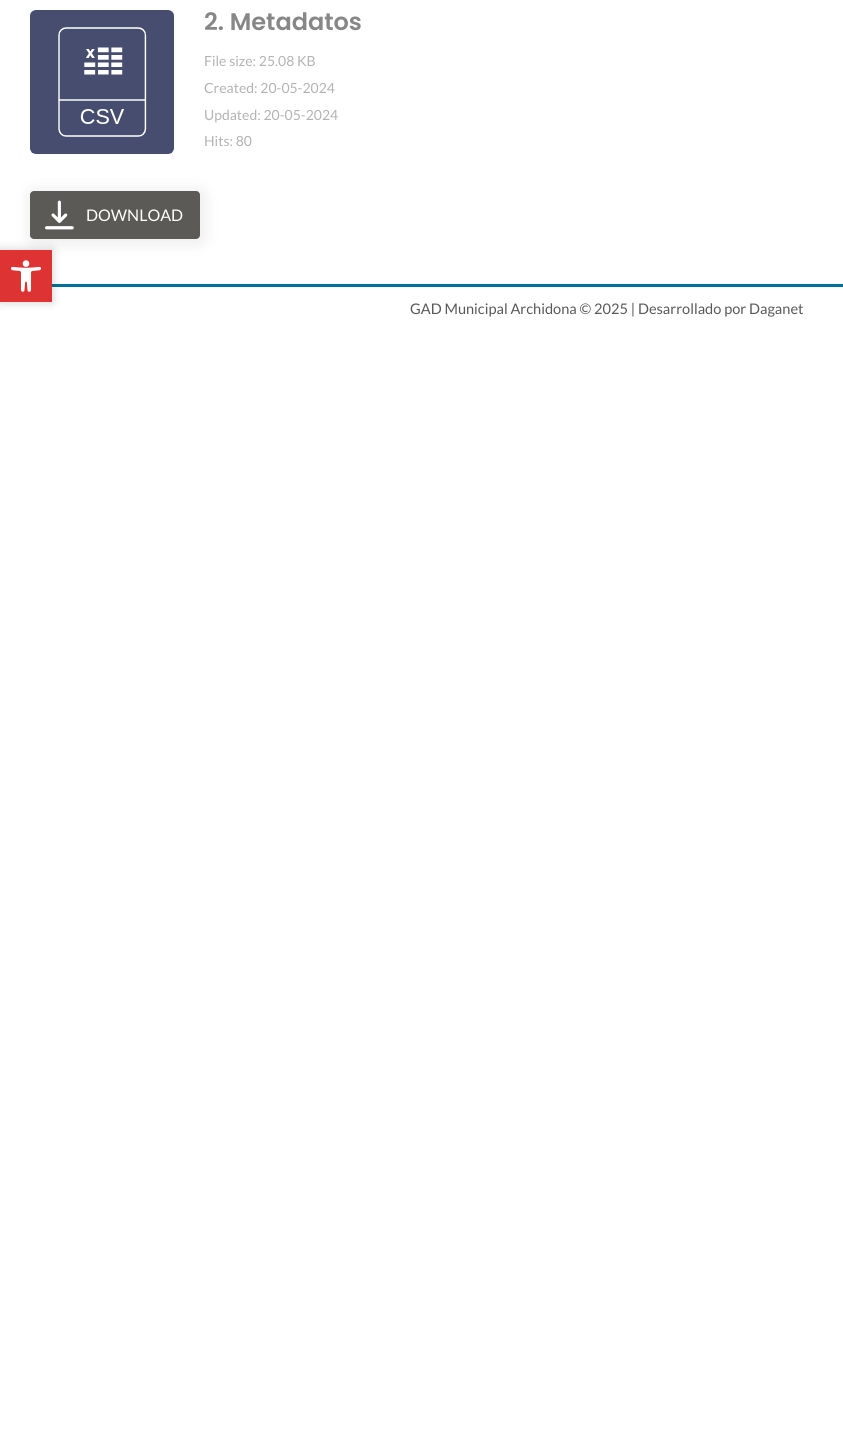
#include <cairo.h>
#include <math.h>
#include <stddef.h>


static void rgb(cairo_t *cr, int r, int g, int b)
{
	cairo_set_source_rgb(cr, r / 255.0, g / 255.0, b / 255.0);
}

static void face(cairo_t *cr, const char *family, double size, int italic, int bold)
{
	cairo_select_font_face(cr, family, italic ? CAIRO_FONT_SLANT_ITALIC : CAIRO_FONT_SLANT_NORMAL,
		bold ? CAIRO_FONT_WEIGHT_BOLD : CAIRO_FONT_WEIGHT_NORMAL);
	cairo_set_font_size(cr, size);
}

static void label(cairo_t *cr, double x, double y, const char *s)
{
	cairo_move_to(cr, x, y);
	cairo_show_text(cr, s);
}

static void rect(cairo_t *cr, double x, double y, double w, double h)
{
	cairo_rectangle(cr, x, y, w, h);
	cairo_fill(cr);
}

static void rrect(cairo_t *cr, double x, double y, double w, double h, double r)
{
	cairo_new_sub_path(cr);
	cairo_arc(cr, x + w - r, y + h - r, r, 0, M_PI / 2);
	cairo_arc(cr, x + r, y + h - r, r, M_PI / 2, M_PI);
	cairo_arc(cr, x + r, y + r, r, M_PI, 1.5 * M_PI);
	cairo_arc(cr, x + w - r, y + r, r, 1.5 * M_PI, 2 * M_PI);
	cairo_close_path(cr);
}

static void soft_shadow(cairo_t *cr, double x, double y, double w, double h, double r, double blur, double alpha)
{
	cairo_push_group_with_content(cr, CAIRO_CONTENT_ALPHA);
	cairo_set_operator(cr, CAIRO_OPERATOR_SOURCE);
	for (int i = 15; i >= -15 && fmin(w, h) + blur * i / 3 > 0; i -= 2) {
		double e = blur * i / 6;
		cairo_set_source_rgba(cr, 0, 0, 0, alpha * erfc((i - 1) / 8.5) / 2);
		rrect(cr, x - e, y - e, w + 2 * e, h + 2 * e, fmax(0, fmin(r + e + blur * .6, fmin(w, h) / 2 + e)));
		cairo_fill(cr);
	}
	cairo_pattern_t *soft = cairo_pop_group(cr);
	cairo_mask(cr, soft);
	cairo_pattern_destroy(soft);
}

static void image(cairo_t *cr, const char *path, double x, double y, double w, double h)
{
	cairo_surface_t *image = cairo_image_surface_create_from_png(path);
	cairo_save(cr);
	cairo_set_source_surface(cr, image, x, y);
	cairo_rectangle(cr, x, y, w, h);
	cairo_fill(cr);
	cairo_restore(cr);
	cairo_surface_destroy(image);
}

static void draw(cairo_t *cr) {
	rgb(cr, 255, 255, 255);
	cairo_paint(cr);
	rgb(cr, 240, 240, 240);
	soft_shadow(cr, 27, 188, 180, 58, 9, 6, 1);
	rgb(cr, 92, 90, 87);
	rrect(cr, 30, 191, 170, 48, 4);
	cairo_fill(cr);
	rgb(cr, 0, 113, 154);
	rect(cr, 52, 284, 791, 3);
	rgb(cr, 0, 0, 0);
	soft_shadow(cr, 0, 250, 52, 52, 0, 5, 0.1);
	image(cr, "image0.png", 30, 10, 144, 144);
	face(cr, "Poppins SemiBold", 24, 0, 0);
	rgb(cr, 135, 135, 135);
	label(cr, 204, 30, "2. Metadatos");
	face(cr, "Lato", 14, 0, 0);
	rgb(cr, 179, 179, 179);
	label(cr, 204, 66, "File size: 25.08 KB");
	label(cr, 204, 93, "Created: 20-05-2024");
	label(cr, 204, 120, "Updated: 20-05-2024");
	label(cr, 204, 146, "Hits: 80");
	image(cr, "image1.png", 45, 200, 29, 30);
	face(cr, "Lato", 16, 0, 0);
	rgb(cr, 255, 255, 255);
	label(cr, 86, 221, "DOWNLOAD");
	face(cr, "Lato", 14.6, 0, 0);
	rgb(cr, 88, 88, 88);
	label(cr, 410, 314, "GAD Municipal Archidona © 2025 | Desarrollado por Daganet");
	rgb(cr, 0, 0, 0);
	soft_shadow(cr, 0, 250, 52, 52, 0, 5, 0.1);
	rgb(cr, 221, 51, 51);
	rect(cr, 0, 250, 52, 52);
	image(cr, "image2.png", 11, 260, 30, 32);
}

int main(void) {
	cairo_surface_t *surface = cairo_image_surface_create(CAIRO_FORMAT_RGB24, 843, 1442);
	cairo_t *cr = cairo_create(surface);
	cairo_font_options_t *options = cairo_font_options_create();
	cairo_font_options_set_hint_metrics(options, CAIRO_HINT_METRICS_OFF);
	cairo_font_options_set_hint_style(options, CAIRO_HINT_STYLE_NONE);
	cairo_set_font_options(cr, options);
	cairo_set_miter_limit(cr, 4);
	draw(cr);
	cairo_surface_write_to_png(surface, "render.png");
	cairo_font_options_destroy(options);
	cairo_destroy(cr);
	cairo_surface_destroy(surface);
	return 0;
}
